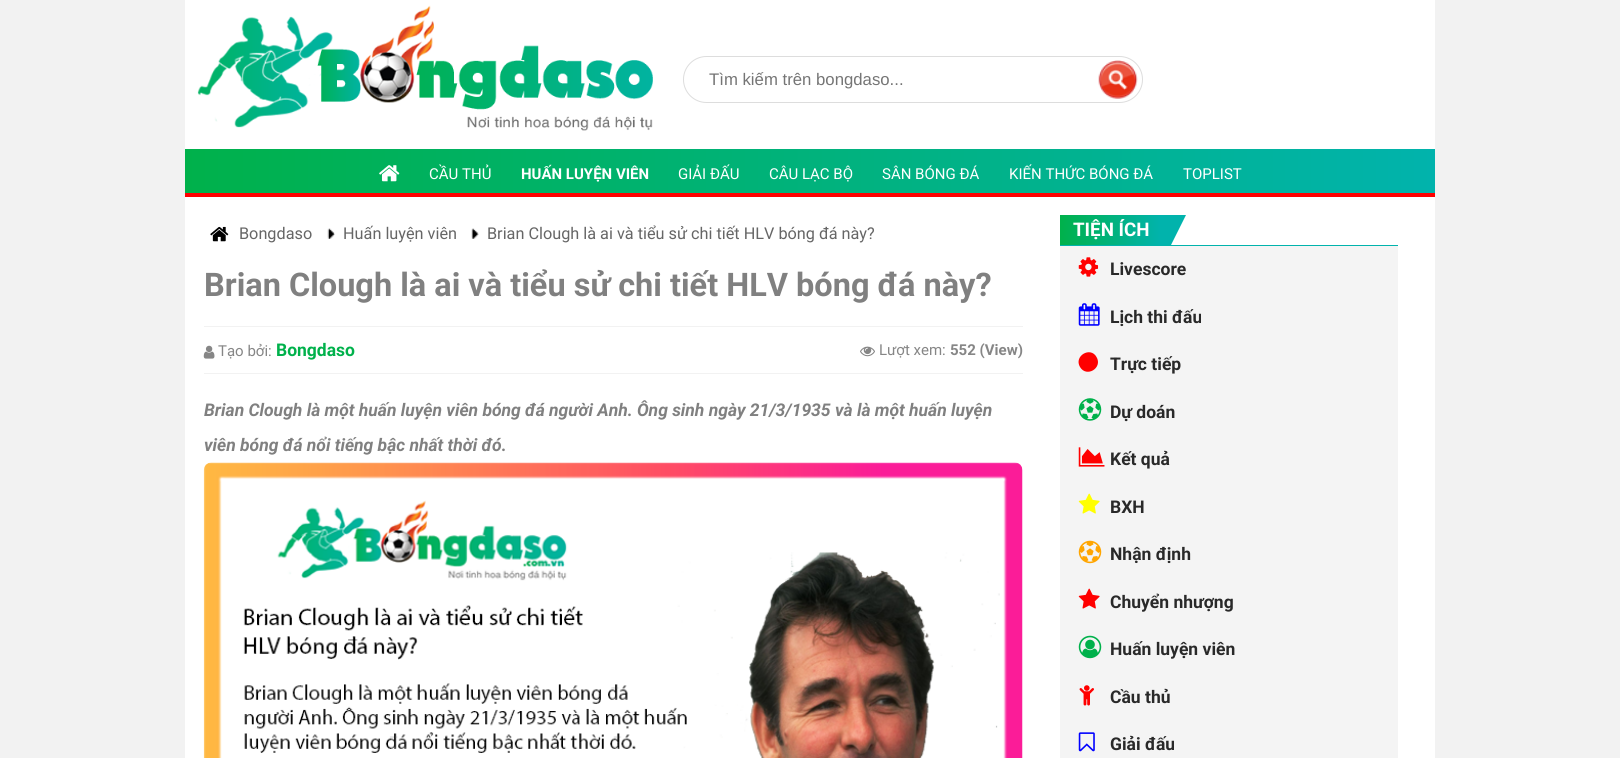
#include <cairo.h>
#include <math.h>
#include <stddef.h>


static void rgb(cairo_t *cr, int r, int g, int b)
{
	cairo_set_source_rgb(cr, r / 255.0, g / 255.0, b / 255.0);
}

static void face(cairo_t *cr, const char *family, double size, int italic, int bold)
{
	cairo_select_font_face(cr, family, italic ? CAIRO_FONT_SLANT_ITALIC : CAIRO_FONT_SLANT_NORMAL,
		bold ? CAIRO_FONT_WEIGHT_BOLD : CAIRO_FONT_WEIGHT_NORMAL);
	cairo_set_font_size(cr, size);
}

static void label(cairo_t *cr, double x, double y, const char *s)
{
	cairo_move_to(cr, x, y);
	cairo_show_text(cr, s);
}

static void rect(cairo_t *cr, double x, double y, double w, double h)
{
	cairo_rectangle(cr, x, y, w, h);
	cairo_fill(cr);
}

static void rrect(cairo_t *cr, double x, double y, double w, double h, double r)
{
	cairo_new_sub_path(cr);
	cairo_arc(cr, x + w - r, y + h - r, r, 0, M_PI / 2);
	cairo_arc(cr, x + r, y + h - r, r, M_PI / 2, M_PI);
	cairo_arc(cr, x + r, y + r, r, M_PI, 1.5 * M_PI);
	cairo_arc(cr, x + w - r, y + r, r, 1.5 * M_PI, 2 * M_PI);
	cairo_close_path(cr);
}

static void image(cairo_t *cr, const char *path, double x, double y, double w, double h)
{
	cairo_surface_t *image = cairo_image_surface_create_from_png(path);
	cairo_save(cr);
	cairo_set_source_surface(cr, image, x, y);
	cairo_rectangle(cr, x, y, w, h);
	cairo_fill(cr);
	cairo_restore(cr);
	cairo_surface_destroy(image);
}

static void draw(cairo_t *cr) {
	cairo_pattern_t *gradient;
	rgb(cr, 242, 242, 242);
	cairo_paint(cr);
	rgb(cr, 255, 255, 255);
	rect(cr, 185, 0, 1250, 149);
	image(cr, "image0.png", 197, 5, 456, 126);
	rrect(cr, 683.5, 56.5, 459, 46, 23);
	rgb(cr, 221, 221, 221);
	cairo_set_line_width(cr, 1);
	cairo_stroke(cr);
	face(cr, "Liberation Sans", 16.75, 0, 0);
	rgb(cr, 117, 117, 117);
	label(cr, 709, 85, "Tìm kiếm trên bongdaso...");
	image(cr, "image1.png", 1098, 60, 40, 39);
	gradient = cairo_pattern_create_linear(185, 149, 1435, 149);
	cairo_pattern_add_color_stop_rgba(gradient, 0, 0, 0.694, 0.294, 1);
	cairo_pattern_add_color_stop_rgba(gradient, 1, 0.004, 0.702, 0.675, 1);
	cairo_set_source(cr, gradient);
	cairo_pattern_destroy(gradient);
	rect(cr, 185, 149, 1250, 44);
	rgb(cr, 255, 0, 0);
	rect(cr, 185, 193, 1250, 4);
	image(cr, "image2.png", 379, 165, 21, 17);
	face(cr, "Roboto", 15, 0, 0);
	rgb(cr, 255, 255, 255);
	label(cr, 429, 179, "CẦU THỦ");
	face(cr, "Roboto", 15, 0, 1);
	label(cr, 521, 179, "HUẤN LUYỆN VIÊN");
	face(cr, "Roboto", 15, 0, 0);
	label(cr, 678, 179, "GIẢI ĐẤU");
	label(cr, 769, 179, "CÂU LẠC BỘ");
	label(cr, 882, 179, "SÂN BÓNG ĐÁ");
	label(cr, 1009, 179, "KIẾN THỨC BÓNG ĐÁ");
	label(cr, 1183, 179, "TOPLIST");
	rect(cr, 185, 197, 1250, 561);
	image(cr, "image3.png", 327, 228, 8, 11);
	image(cr, "image4.png", 210, 226, 19, 16);
	face(cr, "Roboto", 16.25, 0, 0);
	rgb(cr, 102, 102, 102);
	label(cr, 239, 239, "Bongdaso");
	image(cr, "image5.png", 471, 228, 8, 11);
	label(cr, 343, 239, "Huấn luyện viên");
	label(cr, 487, 239, "Brian Clough là ai và tiểu sử chi tiết HLV bóng đá này?");
	face(cr, "Roboto", 32.5, 0, 1);
	rgb(cr, 128, 128, 128);
	label(cr, 204, 296, "Brian Clough là ai và tiểu sử chi tiết HLV bóng đá này?");
	rgb(cr, 242, 242, 242);
	rect(cr, 204, 326, 819, 1);
	rect(cr, 204, 373, 819, 1);
	image(cr, "image6.png", 203, 345, 12, 14);
	face(cr, "Roboto", 15, 0, 0);
	rgb(cr, 134, 134, 134);
	label(cr, 218, 356, "Tạo bởi:");
	face(cr, "Roboto", 17.5, 0, 1);
	rgb(cr, 0, 177, 75);
	label(cr, 276, 356, "Bongdaso");
	image(cr, "image7.png", 860, 346, 15, 11);
	face(cr, "Roboto", 15, 0, 0);
	rgb(cr, 134, 134, 134);
	label(cr, 879, 355, "Lượt xem:");
	face(cr, "Roboto", 15, 0, 1);
	label(cr, 950, 355, "552 (View)");
	face(cr, "Roboto", 17.5, 1, 1);
	rgb(cr, 128, 128, 128);
	label(cr, 204, 416, "Brian Clough là một huấn luyện viên bóng đá người Anh. Ông sinh ngày 21/3/1935 và là một huấn luyện");
	label(cr, 204, 451, "viên bóng đá nổi tiếng bậc nhất thời đó.");
	image(cr, "image8.png", 203, 462, 820, 296);
	rgb(cr, 1, 179, 172);
	rect(cr, 1060, 245, 338, 1);
	gradient = cairo_pattern_create_linear(1060, 215, 1161, 215);
	cairo_pattern_add_color_stop_rgba(gradient, 0, 0, 0.694, 0.294, 1);
	cairo_pattern_add_color_stop_rgba(gradient, 1, 0.004, 0.702, 0.675, 1);
	cairo_set_source(cr, gradient);
	cairo_pattern_destroy(gradient);
	rect(cr, 1060, 215, 101, 30);
	face(cr, "Roboto", 18.75, 0, 1);
	rgb(cr, 255, 255, 255);
	label(cr, 1073, 236, "TIỆN ÍCH");
	cairo_save(cr);
	cairo_rectangle(cr, 1060, 215, 338, 30);
	cairo_clip(cr);
	rgb(cr, 1, 179, 172);
	cairo_new_path(cr);
	cairo_move_to(cr, 1161, 265);
	cairo_line_to(cr, 1161, 215);
	cairo_line_to(cr, 1186, 215);
	cairo_close_path(cr);
	cairo_fill(cr);
	cairo_restore(cr);
	rgb(cr, 244, 244, 244);
	rect(cr, 1060, 246, 338, 512);
	image(cr, "image9.png", 1078, 257, 21, 20);
	face(cr, "Roboto", 17.5, 0, 1);
	rgb(cr, 41, 41, 41);
	label(cr, 1110, 275, "Livescore");
	image(cr, "image10.png", 1078, 303, 22, 23);
	label(cr, 1110, 323, "Lịch thi đấu");
	rgb(cr, 255, 0, 0);
	cairo_new_path(cr);
	cairo_move_to(cr, 1096.5, 357);
	cairo_curve_to(cr, 1103, 368, 1086.5, 378, 1080, 367);
	cairo_curve_to(cr, 1073.5, 356, 1090.5, 346, 1096.5, 357);
	cairo_close_path(cr);
	cairo_fill(cr);
	rgb(cr, 41, 41, 41);
	label(cr, 1110, 370, "Trực tiếp");
	image(cr, "image11.png", 1078, 398, 24, 23);
	label(cr, 1110, 418, "Dự doán");
	image(cr, "image12.png", 1078, 447, 27, 20);
	label(cr, 1110, 465, "Kết quả");
	image(cr, "image13.png", 1078, 493, 22, 21);
	label(cr, 1110, 513, "BXH");
	image(cr, "image14.png", 1078, 540, 24, 24);
	label(cr, 1110, 560, "Nhận định");
	image(cr, "image15.png", 1078, 588, 22, 21);
	label(cr, 1110, 608, "Chuyển nhượng");
	image(cr, "image16.png", 1078, 635, 24, 24);
	label(cr, 1110, 655, "Huấn luyện viên");
	image(cr, "image17.png", 1079, 685, 15, 21);
	label(cr, 1110, 703, "Cầu thủ");
	image(cr, "image18.png", 1078, 732, 17, 20);
	label(cr, 1110, 750, "Giải đấu");
}

int main(void) {
	cairo_surface_t *surface = cairo_image_surface_create(CAIRO_FORMAT_RGB24, 1620, 758);
	cairo_t *cr = cairo_create(surface);
	cairo_font_options_t *options = cairo_font_options_create();
	cairo_font_options_set_hint_metrics(options, CAIRO_HINT_METRICS_OFF);
	cairo_font_options_set_hint_style(options, CAIRO_HINT_STYLE_NONE);
	cairo_set_font_options(cr, options);
	cairo_set_miter_limit(cr, 4);
	draw(cr);
	cairo_surface_write_to_png(surface, "render.png");
	cairo_font_options_destroy(options);
	cairo_destroy(cr);
	cairo_surface_destroy(surface);
	return 0;
}
